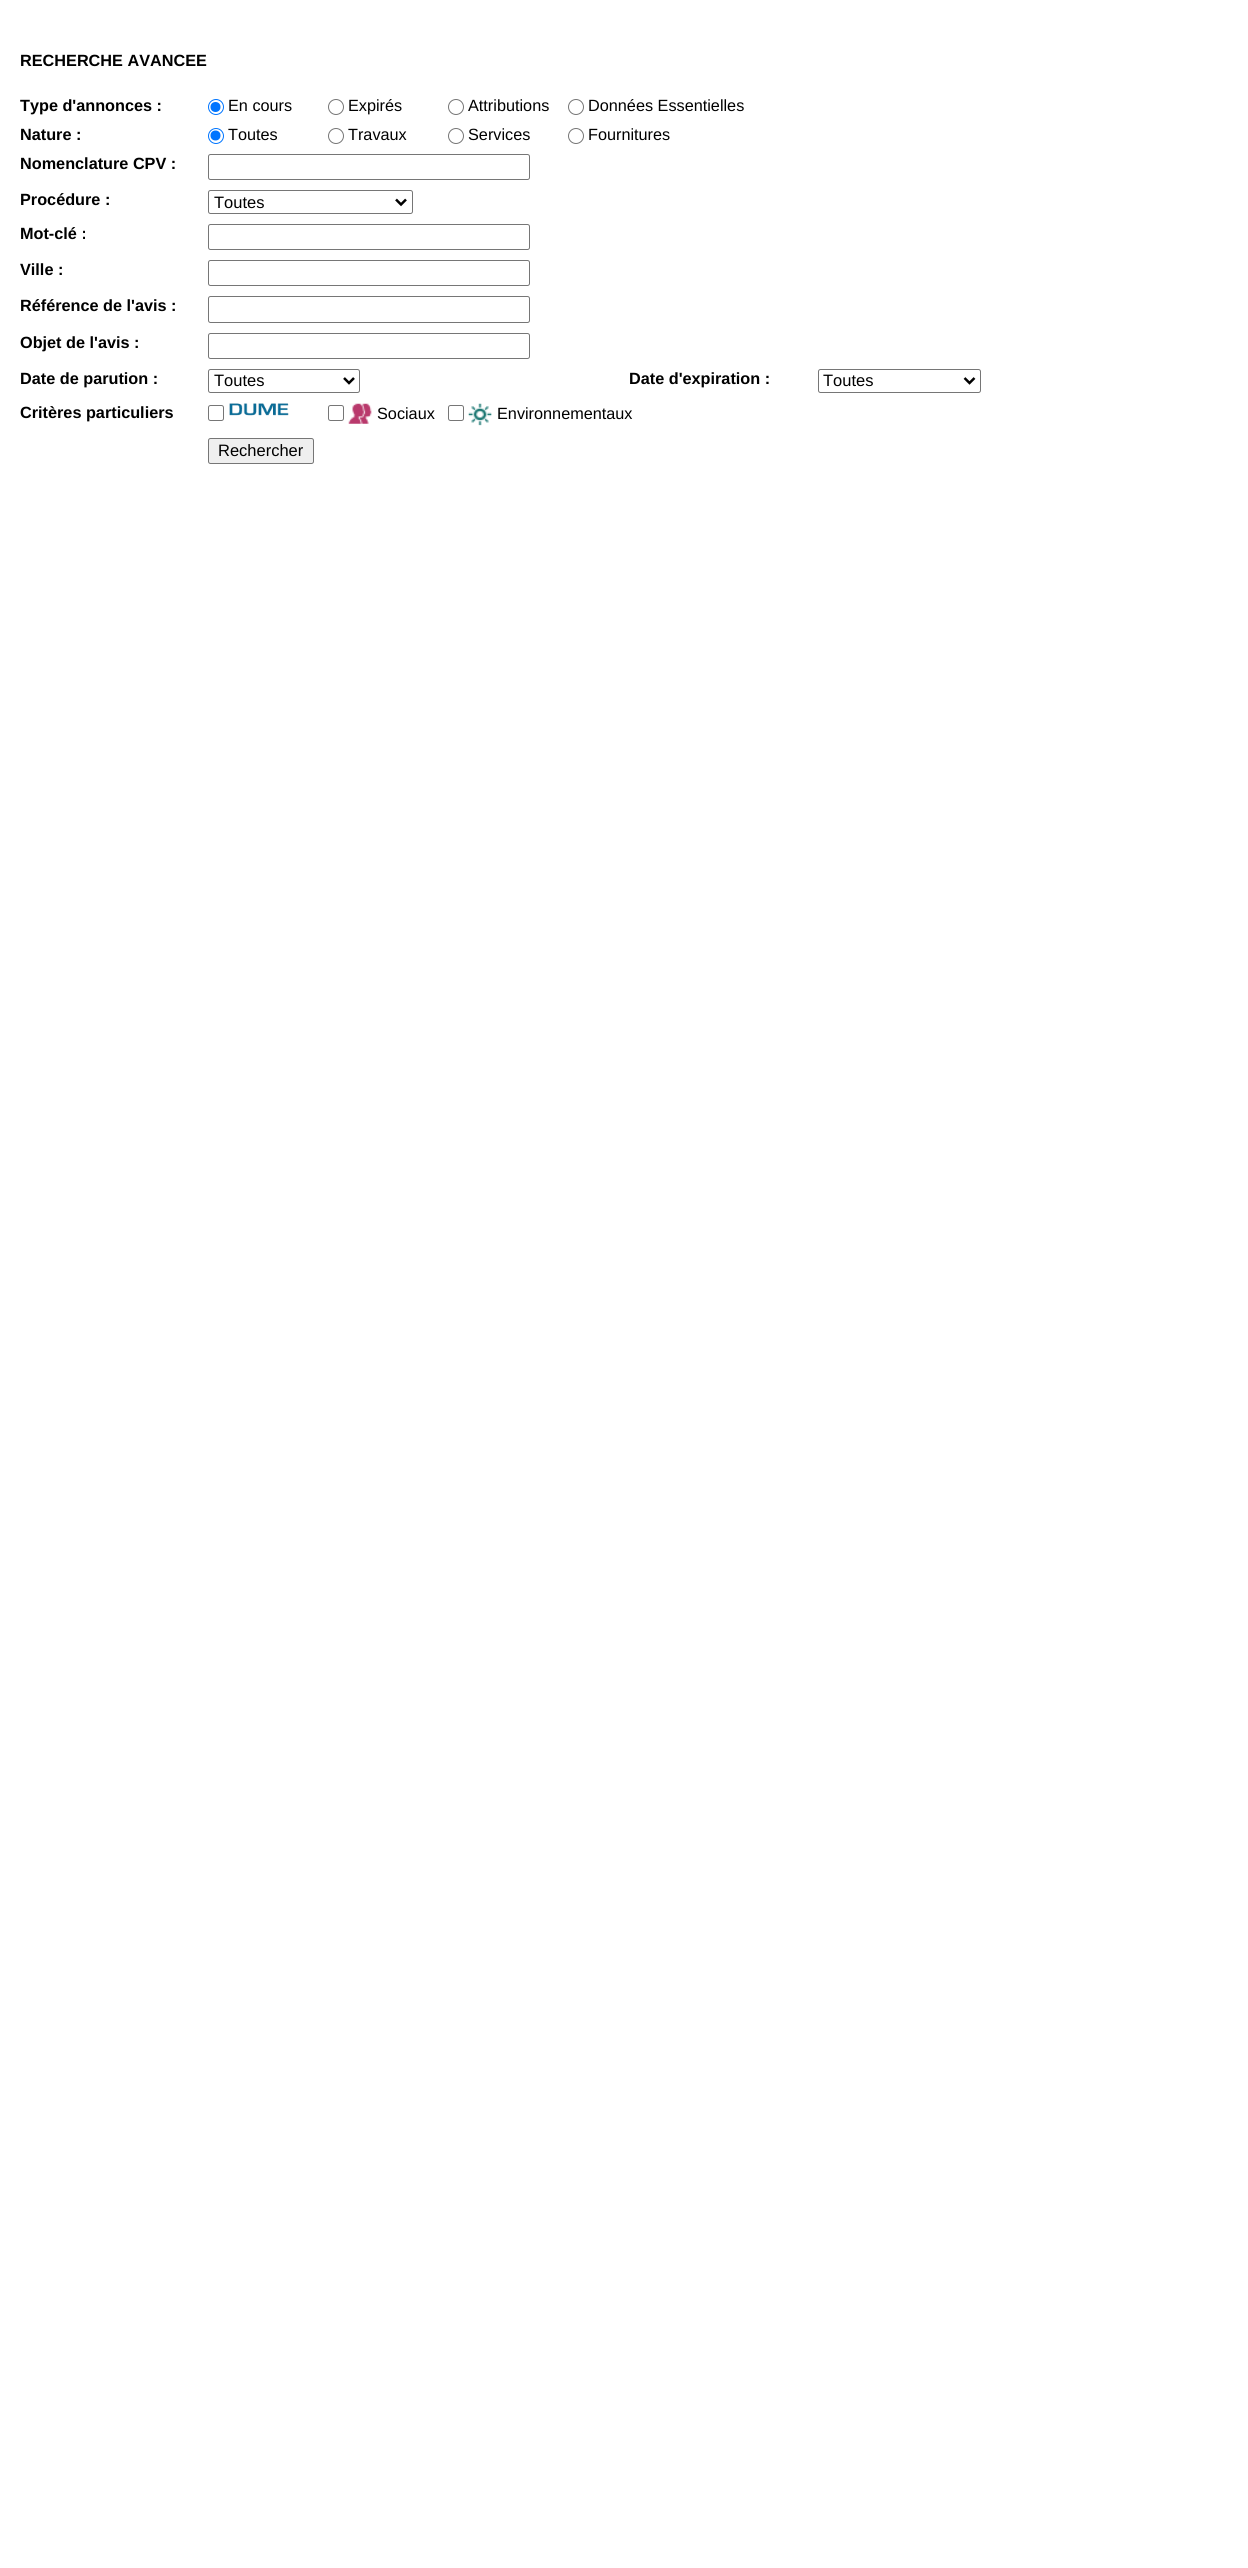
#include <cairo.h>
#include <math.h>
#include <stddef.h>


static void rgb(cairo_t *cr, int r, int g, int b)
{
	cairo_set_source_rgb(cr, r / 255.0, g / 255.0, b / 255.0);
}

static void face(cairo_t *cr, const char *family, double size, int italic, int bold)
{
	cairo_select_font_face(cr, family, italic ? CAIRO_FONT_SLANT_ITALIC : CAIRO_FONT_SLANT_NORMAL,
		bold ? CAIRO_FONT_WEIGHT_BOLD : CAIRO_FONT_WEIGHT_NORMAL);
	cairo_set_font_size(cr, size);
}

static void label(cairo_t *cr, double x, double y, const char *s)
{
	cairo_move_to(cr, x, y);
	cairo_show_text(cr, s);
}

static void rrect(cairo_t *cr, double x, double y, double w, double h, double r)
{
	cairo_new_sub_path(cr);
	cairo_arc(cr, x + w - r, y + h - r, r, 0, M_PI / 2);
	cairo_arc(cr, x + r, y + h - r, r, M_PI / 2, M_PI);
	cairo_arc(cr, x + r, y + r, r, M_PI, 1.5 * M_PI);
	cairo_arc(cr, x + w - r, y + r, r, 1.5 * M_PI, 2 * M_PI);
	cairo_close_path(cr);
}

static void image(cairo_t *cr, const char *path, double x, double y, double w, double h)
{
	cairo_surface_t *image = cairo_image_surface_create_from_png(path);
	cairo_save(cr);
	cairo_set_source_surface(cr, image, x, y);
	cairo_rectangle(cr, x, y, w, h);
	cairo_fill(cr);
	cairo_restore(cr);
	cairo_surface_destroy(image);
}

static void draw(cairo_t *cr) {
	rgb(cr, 255, 255, 255);
	cairo_paint(cr);
	face(cr, "Liberation Sans", 16.25, 0, 1);
	rgb(cr, 0, 0, 0);
	label(cr, 20, 66, "RECHERCHE AVANCEE");
	label(cr, 20, 111, "Type d'annonces :");
	cairo_new_path(cr);
	cairo_arc(cr, 216, 107, 7.5, 0, 2 * M_PI);
	rgb(cr, 0, 117, 255);
	cairo_set_line_width(cr, 1);
	cairo_stroke(cr);
	cairo_arc(cr, 215.5, 107, 5, 0, 2 * M_PI);
	cairo_fill(cr);
	face(cr, "Liberation Sans", 16.25, 0, 0);
	rgb(cr, 0, 0, 0);
	label(cr, 228, 111, "En cours");
	cairo_new_path(cr);
	cairo_arc(cr, 336, 107, 7.5, 0, 2 * M_PI);
	rgb(cr, 118, 118, 118);
	cairo_stroke(cr);
	rgb(cr, 0, 0, 0);
	label(cr, 348, 111, "Expirés");
	cairo_new_path(cr);
	cairo_arc(cr, 456, 107, 7.5, 0, 2 * M_PI);
	rgb(cr, 118, 118, 118);
	cairo_stroke(cr);
	rgb(cr, 0, 0, 0);
	label(cr, 468, 111, "Attributions");
	cairo_new_path(cr);
	cairo_arc(cr, 576, 107, 7.5, 0, 2 * M_PI);
	rgb(cr, 118, 118, 118);
	cairo_stroke(cr);
	rgb(cr, 0, 0, 0);
	label(cr, 588, 111, "Données Essentielles");
	face(cr, "Liberation Sans", 16.25, 0, 1);
	label(cr, 20, 140, "Nature :");
	cairo_new_path(cr);
	cairo_arc(cr, 216, 136, 7.5, 0, 2 * M_PI);
	rgb(cr, 0, 117, 255);
	cairo_stroke(cr);
	cairo_arc(cr, 215.5, 135.5, 5, 0, 2 * M_PI);
	cairo_fill(cr);
	face(cr, "Liberation Sans", 16.25, 0, 0);
	rgb(cr, 0, 0, 0);
	label(cr, 228, 140, "Toutes");
	cairo_new_path(cr);
	cairo_arc(cr, 336, 136, 7.5, 0, 2 * M_PI);
	rgb(cr, 118, 118, 118);
	cairo_stroke(cr);
	rgb(cr, 0, 0, 0);
	label(cr, 348, 140, "Travaux");
	cairo_new_path(cr);
	cairo_arc(cr, 456, 136, 7.5, 0, 2 * M_PI);
	rgb(cr, 118, 118, 118);
	cairo_stroke(cr);
	rgb(cr, 0, 0, 0);
	label(cr, 468, 140, "Services");
	cairo_new_path(cr);
	cairo_arc(cr, 576, 136, 7.5, 0, 2 * M_PI);
	rgb(cr, 118, 118, 118);
	cairo_stroke(cr);
	rgb(cr, 0, 0, 0);
	label(cr, 588, 140, "Fournitures");
	face(cr, "Liberation Sans", 16.25, 0, 1);
	label(cr, 20, 169, "Nomenclature CPV :");
	rrect(cr, 208.5, 154.5, 321, 25, 2);
	rgb(cr, 118, 118, 118);
	cairo_stroke(cr);
	rgb(cr, 0, 0, 0);
	label(cr, 20, 205, "Procédure :");
	rrect(cr, 208.5, 190.5, 204, 23, 2);
	rgb(cr, 118, 118, 118);
	cairo_stroke(cr);
	cairo_new_path(cr);
	cairo_move_to(cr, 396, 199.5);
	cairo_line_to(cr, 401, 204.5);
	cairo_line_to(cr, 406, 199.5);
	rgb(cr, 0, 0, 0);
	cairo_set_line_width(cr, 2.5);
	cairo_stroke(cr);
	face(cr, "Liberation Sans", 16.5, 0, 0);
	label(cr, 214, 208, "Toutes");
	face(cr, "Liberation Sans", 16.25, 0, 1);
	label(cr, 20, 239, "Mot-clé :");
	rrect(cr, 208.5, 224.5, 321, 25, 2);
	rgb(cr, 118, 118, 118);
	cairo_set_line_width(cr, 1);
	cairo_stroke(cr);
	rgb(cr, 0, 0, 0);
	label(cr, 20, 275, "Ville :");
	rrect(cr, 208.5, 260.5, 321, 25, 2);
	rgb(cr, 118, 118, 118);
	cairo_stroke(cr);
	rgb(cr, 0, 0, 0);
	label(cr, 20, 311, "Référence de l'avis :");
	rrect(cr, 208.5, 296.5, 321, 26, 2);
	rgb(cr, 118, 118, 118);
	cairo_stroke(cr);
	rgb(cr, 0, 0, 0);
	label(cr, 20, 348, "Objet de l'avis :");
	rrect(cr, 208.5, 333.5, 321, 25, 2);
	rgb(cr, 118, 118, 118);
	cairo_stroke(cr);
	rgb(cr, 0, 0, 0);
	label(cr, 20, 384, "Date de parution :");
	rrect(cr, 208.5, 369.5, 151, 23, 2);
	rgb(cr, 118, 118, 118);
	cairo_stroke(cr);
	cairo_new_path(cr);
	cairo_move_to(cr, 344, 378);
	cairo_line_to(cr, 349, 383);
	cairo_line_to(cr, 354, 378);
	rgb(cr, 0, 0, 0);
	cairo_set_line_width(cr, 2.5);
	cairo_stroke(cr);
	face(cr, "Liberation Sans", 16.5, 0, 0);
	label(cr, 214, 386, "Toutes");
	face(cr, "Liberation Sans", 16.25, 0, 1);
	label(cr, 629, 384, "Date d'expiration :");
	rrect(cr, 818.5, 369.5, 162, 23, 2);
	rgb(cr, 118, 118, 118);
	cairo_set_line_width(cr, 1);
	cairo_stroke(cr);
	cairo_new_path(cr);
	cairo_move_to(cr, 964.5, 378);
	cairo_line_to(cr, 969.5, 383);
	cairo_line_to(cr, 974.5, 378);
	rgb(cr, 0, 0, 0);
	cairo_set_line_width(cr, 2.5);
	cairo_stroke(cr);
	face(cr, "Liberation Sans", 16.5, 0, 0);
	label(cr, 823, 386, "Toutes");
	face(cr, "Liberation Sans", 16.25, 0, 1);
	label(cr, 20, 418, "Critères particuliers");
	rrect(cr, 208.5, 405.5, 15, 15, 2);
	rgb(cr, 118, 118, 118);
	cairo_set_line_width(cr, 1);
	cairo_stroke(cr);
	image(cr, "image0.png", 229, 403, 60, 13);
	rrect(cr, 328.5, 405.5, 15, 15, 2);
	cairo_stroke(cr);
	image(cr, "image1.png", 348, 403, 24, 21);
	face(cr, "Liberation Sans", 16.25, 0, 0);
	rgb(cr, 0, 0, 0);
	label(cr, 377, 419, "Sociaux");
	rrect(cr, 448.5, 405.5, 15, 15, 2);
	rgb(cr, 118, 118, 118);
	cairo_stroke(cr);
	image(cr, "image2.png", 468, 403, 24, 23);
	rgb(cr, 0, 0, 0);
	label(cr, 497, 419, "Environnementaux");
	rgb(cr, 239, 239, 239);
	rrect(cr, 208.5, 438.5, 105, 25, 2);
	cairo_fill_preserve(cr);
	rgb(cr, 118, 118, 118);
	cairo_stroke(cr);
	face(cr, "Liberation Sans", 16.5, 0, 0);
	rgb(cr, 0, 0, 0);
	label(cr, 218, 456, "Rechercher");
}

int main(void) {
	cairo_surface_t *surface = cairo_image_surface_create(CAIRO_FORMAT_RGB24, 1248, 2568);
	cairo_t *cr = cairo_create(surface);
	cairo_font_options_t *options = cairo_font_options_create();
	cairo_font_options_set_hint_metrics(options, CAIRO_HINT_METRICS_OFF);
	cairo_font_options_set_hint_style(options, CAIRO_HINT_STYLE_NONE);
	cairo_set_font_options(cr, options);
	cairo_set_miter_limit(cr, 4);
	draw(cr);
	cairo_surface_write_to_png(surface, "render.png");
	cairo_font_options_destroy(options);
	cairo_destroy(cr);
	cairo_surface_destroy(surface);
	return 0;
}
